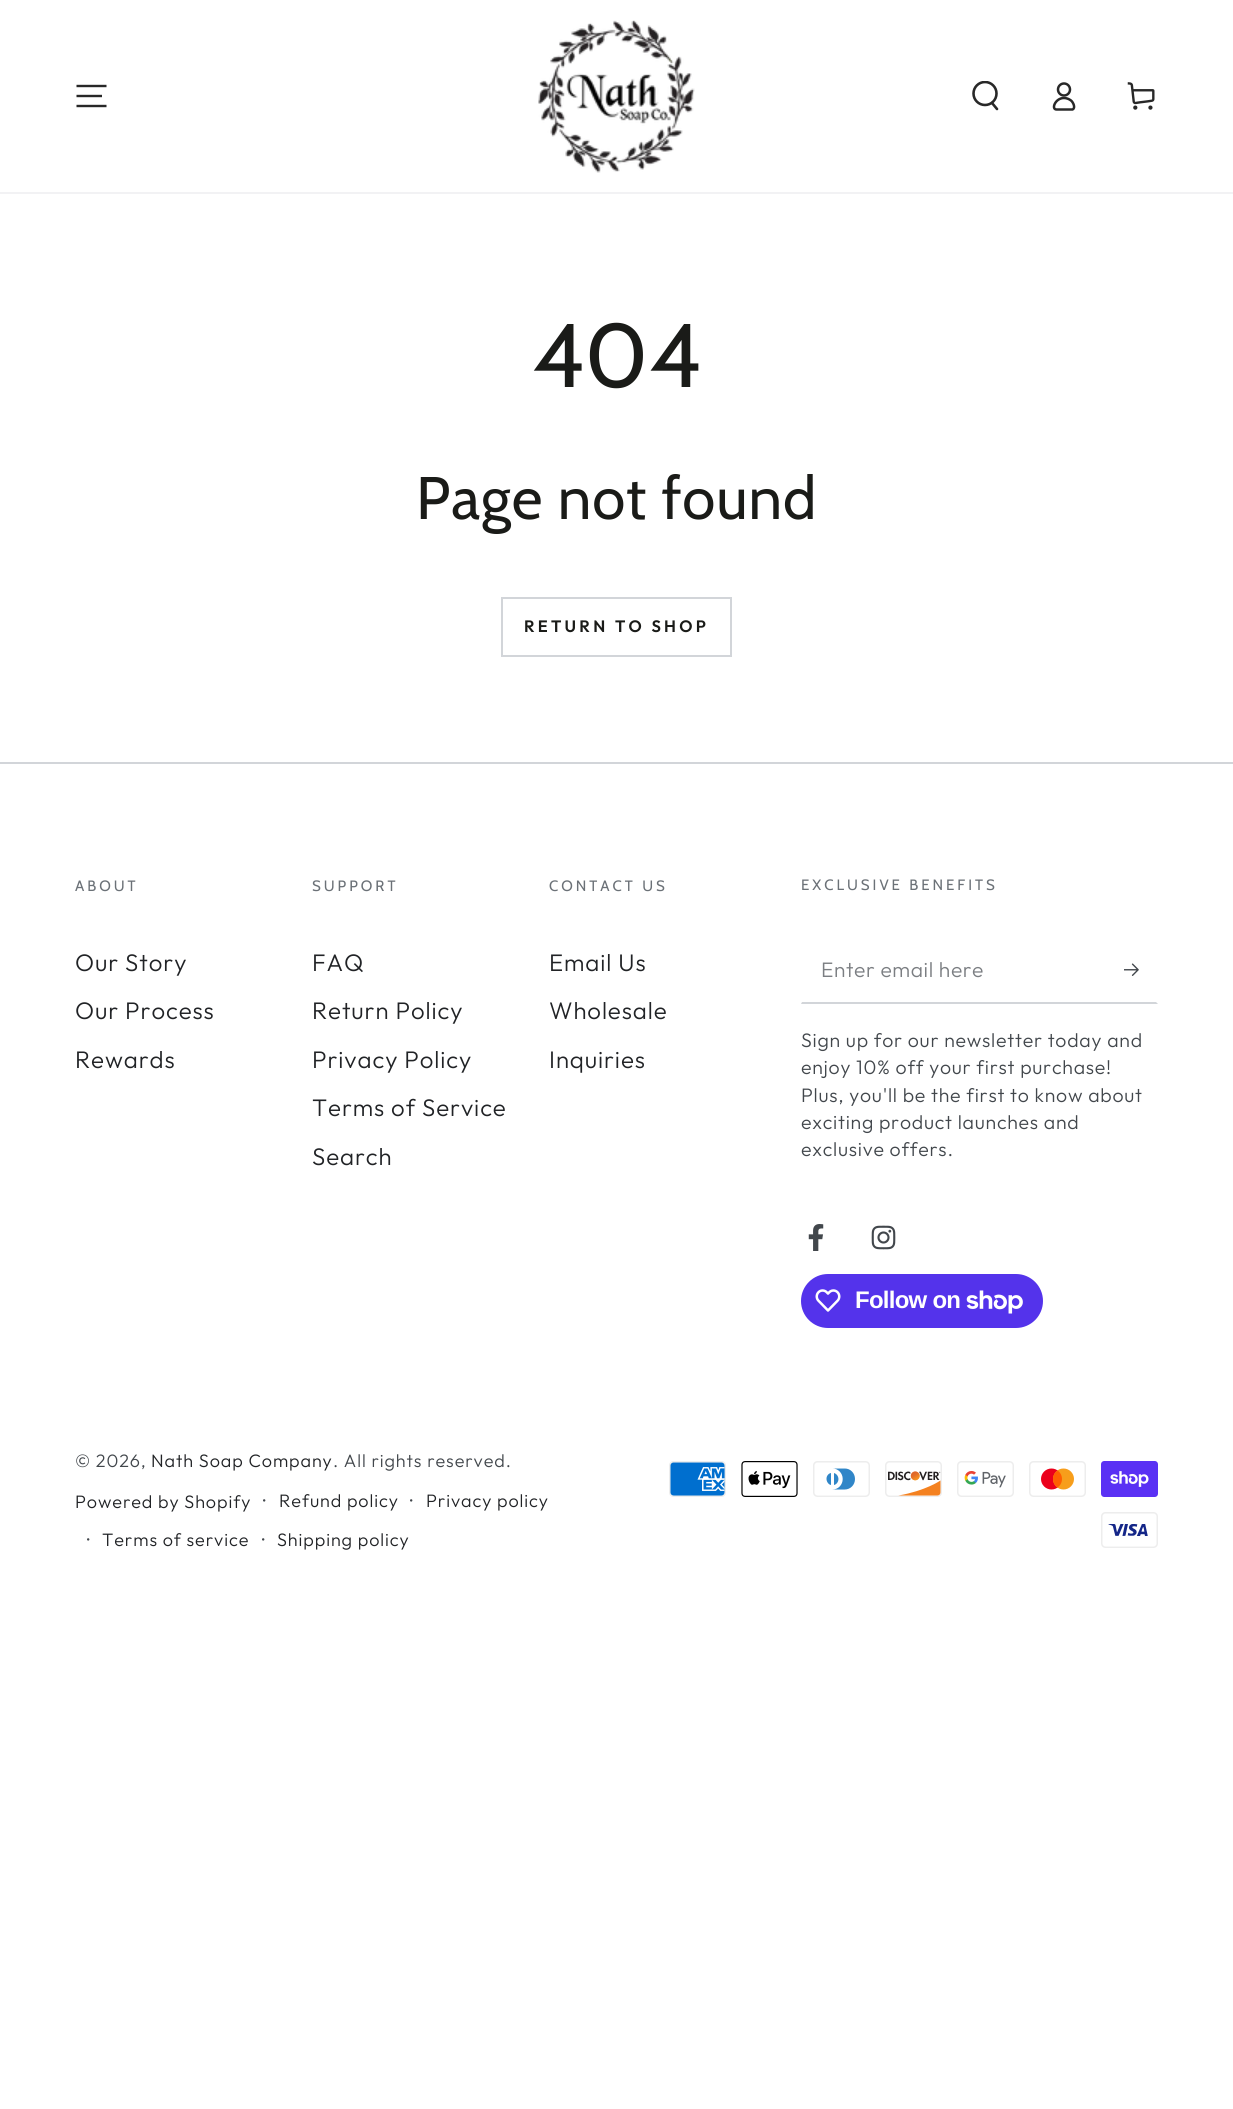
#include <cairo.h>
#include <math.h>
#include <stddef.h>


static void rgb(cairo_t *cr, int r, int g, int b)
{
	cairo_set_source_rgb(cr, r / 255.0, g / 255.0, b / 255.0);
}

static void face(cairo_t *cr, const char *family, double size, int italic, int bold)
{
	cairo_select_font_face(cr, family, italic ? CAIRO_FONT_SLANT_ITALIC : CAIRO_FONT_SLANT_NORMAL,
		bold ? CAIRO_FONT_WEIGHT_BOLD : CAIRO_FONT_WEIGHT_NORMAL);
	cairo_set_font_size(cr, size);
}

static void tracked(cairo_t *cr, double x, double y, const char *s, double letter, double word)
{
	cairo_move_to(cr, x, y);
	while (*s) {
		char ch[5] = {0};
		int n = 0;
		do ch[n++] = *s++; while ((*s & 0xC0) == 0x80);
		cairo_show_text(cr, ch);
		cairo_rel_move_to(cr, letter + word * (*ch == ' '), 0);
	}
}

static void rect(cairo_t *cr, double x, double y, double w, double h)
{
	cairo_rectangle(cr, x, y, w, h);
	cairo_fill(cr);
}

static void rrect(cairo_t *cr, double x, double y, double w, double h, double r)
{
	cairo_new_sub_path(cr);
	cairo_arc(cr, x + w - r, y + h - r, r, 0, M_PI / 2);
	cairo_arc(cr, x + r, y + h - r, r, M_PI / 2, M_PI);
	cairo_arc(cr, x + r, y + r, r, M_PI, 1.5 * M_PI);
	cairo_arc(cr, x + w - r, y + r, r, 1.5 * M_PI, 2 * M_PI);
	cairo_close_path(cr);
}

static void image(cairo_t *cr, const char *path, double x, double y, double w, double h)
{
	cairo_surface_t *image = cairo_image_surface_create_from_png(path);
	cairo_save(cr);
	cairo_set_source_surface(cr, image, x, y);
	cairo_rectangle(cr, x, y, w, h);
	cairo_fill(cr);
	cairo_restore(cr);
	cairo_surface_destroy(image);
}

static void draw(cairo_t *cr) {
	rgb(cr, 255, 255, 255);
	cairo_paint(cr);
	rgb(cr, 242, 242, 244);
	rect(cr, 0, 192, 1233, 2);
	cairo_new_path(cr);
	cairo_move_to(cr, 76.5, 106);
	cairo_line_to(cr, 106.5, 106);
	cairo_move_to(cr, 76.5, 96);
	cairo_line_to(cr, 102, 96);
	cairo_move_to(cr, 76.5, 86);
	cairo_line_to(cr, 106.5, 86);
	rgb(cr, 40, 40, 40);
	cairo_set_line_width(cr, 2.4);
	cairo_stroke(cr);
	image(cr, "image0.png", 538, 20, 157, 153);
	cairo_save(cr);
	cairo_rectangle(cr, 971, 81, 30, 30);
	cairo_clip(cr);
	cairo_arc(cr, 985, 93.5, 11.5, 0, 2 * M_PI);
	cairo_set_line_width(cr, 2.6);
	cairo_stroke(cr);
	cairo_restore(cr);
	cairo_new_path(cr);
	cairo_move_to(cr, 992, 103);
	cairo_line_to(cr, 997, 109);
	cairo_set_line_width(cr, 2.6);
	cairo_set_line_cap(cr, CAIRO_LINE_CAP_ROUND);
	cairo_stroke(cr);
	cairo_new_path(cr);
	cairo_move_to(cr, 1064, 98);
	cairo_curve_to(cr, 1055, 98, 1051, 109.5, 1056.5, 109.5);
	cairo_line_to(cr, 1072.5, 109.5);
	cairo_curve_to(cr, 1076, 108, 1073, 102, 1071, 100.5);
	cairo_curve_to(cr, 1069, 99, 1066.5, 98, 1064, 98);
	cairo_close_path(cr);
	cairo_set_line_width(cr, 2.5);
	cairo_set_line_cap(cr, CAIRO_LINE_CAP_BUTT);
	cairo_stroke(cr);
	cairo_arc(cr, 1064, 89.5, 6, 0, 2 * M_PI);
	cairo_stroke(cr);
	image(cr, "image1.png", 1127, 82, 28, 28);
	face(cr, "Cabin", 90, 0, 0);
	rgb(cr, 26, 27, 24);
	tracked(cr, 532, 387, "404", 0.9, 0);
	face(cr, "Cabin", 60, 0, 0);
	tracked(cr, 416, 519, "Page not found", 0.9, 0);
	cairo_rectangle(cr, 502, 598, 229, 58);
	rgb(cr, 210, 213, 217);
	cairo_set_line_width(cr, 2);
	cairo_stroke(cr);
	face(cr, "Outfit SemiBold", 16.5, 0, 0);
	rgb(cr, 26, 27, 24);
	tracked(cr, 524, 632, "RETURN TO SHOP", 3.25, 0);
	rgb(cr, 210, 213, 217);
	rect(cr, 0, 762, 1233, 2);
	face(cr, "Cabin", 15, 0, 0);
	rgb(cr, 107, 113, 119);
	tracked(cr, 75, 891, "ABOUT", 3, 0);
	face(cr, "Outfit Light", 24, 0, 0);
	rgb(cr, 33, 35, 38);
	tracked(cr, 75, 971, "Our Story", 0.9, 0);
	tracked(cr, 75, 1019, "Our Process", 0.9, 0);
	tracked(cr, 75, 1068, "Rewards", 0.9, 0);
	face(cr, "Cabin", 15, 0, 0);
	rgb(cr, 107, 113, 119);
	tracked(cr, 312, 891, "SUPPORT", 3, 0);
	face(cr, "Outfit Light", 24, 0, 0);
	rgb(cr, 33, 35, 38);
	tracked(cr, 312, 971, "FAQ", 0.9, 0);
	tracked(cr, 312, 1019, "Return Policy", 0.9, 0);
	tracked(cr, 312, 1068, "Privacy Policy", 0.9, 0);
	tracked(cr, 312, 1116, "Terms of Service", 0.9, 0);
	tracked(cr, 312, 1165, "Search", 0.9, 0);
	face(cr, "Cabin", 15, 0, 0);
	rgb(cr, 107, 113, 119);
	tracked(cr, 549, 891, "CONTACT US", 3, 0);
	face(cr, "Outfit Light", 24, 0, 0);
	rgb(cr, 33, 35, 38);
	tracked(cr, 549, 971, "Email Us", 0.9, 0);
	tracked(cr, 549, 1019, "Wholesale", 0.9, 0);
	tracked(cr, 549, 1068, "Inquiries", 0.9, 0);
	face(cr, "Cabin", 15, 0, 0);
	rgb(cr, 107, 113, 119);
	tracked(cr, 801, 890, "EXCLUSIVE BENEFITS", 3, 0);
	rgb(cr, 210, 213, 217);
	cairo_new_path(cr);
	cairo_move_to(cr, 1158, 1004);
	cairo_line_to(cr, 801, 1004);
	cairo_line_to(cr, 802, 1002);
	cairo_line_to(cr, 1156, 1002);
	cairo_close_path(cr);
	cairo_fill(cr);
	face(cr, "Outfit Light", 21, 0, 0);
	rgb(cr, 123, 126, 130);
	tracked(cr, 821, 977, "Enter email here", 0.6, 0);
	image(cr, "image2.png", 1124, 963, 15, 13);
	face(cr, "Outfit Light", 19.5, 0, 0);
	rgb(cr, 66, 71, 76);
	tracked(cr, 801, 1047, "Sign up for our newsletter today and", 0.75, 0);
	tracked(cr, 801, 1074, "enjoy 10% off your first purchase!", 0.75, 0);
	tracked(cr, 801, 1102, "Plus, you'll be the first to know about", 0.75, 0);
	tracked(cr, 801, 1129, "exciting product launches and", 0.75, 0);
	tracked(cr, 801, 1156, "exclusive offers.", 0.75, 0);
	image(cr, "image3.png", 808, 1224, 16, 27);
	image(cr, "image4.png", 871, 1225, 25, 25);
	rgb(cr, 84, 51, 235);
	rrect(cr, 801, 1274, 242, 54, 27);
	cairo_fill(cr);
	image(cr, "image5.png", 815, 1289, 26, 23);
	face(cr, "Liberation Sans", 24, 0, 1);
	rgb(cr, 255, 255, 255);
	tracked(cr, 855, 1308, "Follow on", -0.75, 0);
	image(cr, "image6.png", 966, 1290, 57, 24);
	face(cr, "Outfit Light", 18, 0, 0);
	rgb(cr, 66, 71, 76);
	tracked(cr, 75, 1467, "© 2026,", 0.9, 0);
	rgb(cr, 33, 35, 38);
	tracked(cr, 151, 1467, "Nath Soap Company", 0.9, 0);
	rgb(cr, 66, 71, 76);
	tracked(cr, 333, 1467, ". All rights reserved.", 0.9, 0);
	rgb(cr, 33, 35, 38);
	tracked(cr, 75, 1508, "Powered by Shopify", 0.9, 0);
	face(cr, "Outfit Light", 21, 0, 0);
	rgb(cr, 66, 71, 76);
	tracked(cr, 263, 1508, "·", 0.9, 0);
	face(cr, "Outfit Light", 18, 0, 0);
	rgb(cr, 33, 35, 38);
	tracked(cr, 279, 1507, "Refund policy", 0.9, 0);
	face(cr, "Outfit Light", 21, 0, 0);
	rgb(cr, 66, 71, 76);
	tracked(cr, 410, 1508, "·", 0.9, 0);
	face(cr, "Outfit Light", 18, 0, 0);
	rgb(cr, 33, 35, 38);
	tracked(cr, 426, 1507, "Privacy policy", 0.9, 0);
	face(cr, "Outfit Light", 21, 0, 0);
	rgb(cr, 66, 71, 76);
	tracked(cr, 87, 1547, "·", 0.9, 0);
	face(cr, "Outfit Light", 18, 0, 0);
	rgb(cr, 33, 35, 38);
	tracked(cr, 102, 1546, "Terms of service", 0.9, 0);
	face(cr, "Outfit Light", 21, 0, 0);
	rgb(cr, 66, 71, 76);
	tracked(cr, 262, 1547, "·", 0.9, 0);
	face(cr, "Outfit Light", 18, 0, 0);
	rgb(cr, 33, 35, 38);
	tracked(cr, 277, 1546, "Shipping policy", 0.9, 0);
	image(cr, "image7.png", 669, 1461, 57, 36);
	image(cr, "image8.png", 741, 1461, 57, 36);
	image(cr, "image9.png", 813, 1461, 57, 36);
	image(cr, "image10.png", 885, 1461, 57, 36);
	image(cr, "image11.png", 957, 1461, 57, 36);
	image(cr, "image12.png", 1029, 1461, 57, 36);
	image(cr, "image13.png", 1101, 1461, 57, 36);
	image(cr, "image14.png", 1101, 1512, 57, 36);
}

int main(void) {
	cairo_surface_t *surface = cairo_image_surface_create(CAIRO_FORMAT_RGB24, 1233, 2109);
	cairo_t *cr = cairo_create(surface);
	cairo_font_options_t *options = cairo_font_options_create();
	cairo_font_options_set_hint_metrics(options, CAIRO_HINT_METRICS_OFF);
	cairo_font_options_set_hint_style(options, CAIRO_HINT_STYLE_NONE);
	cairo_set_font_options(cr, options);
	cairo_set_miter_limit(cr, 4);
	draw(cr);
	cairo_surface_write_to_png(surface, "render.png");
	cairo_font_options_destroy(options);
	cairo_destroy(cr);
	cairo_surface_destroy(surface);
	return 0;
}
